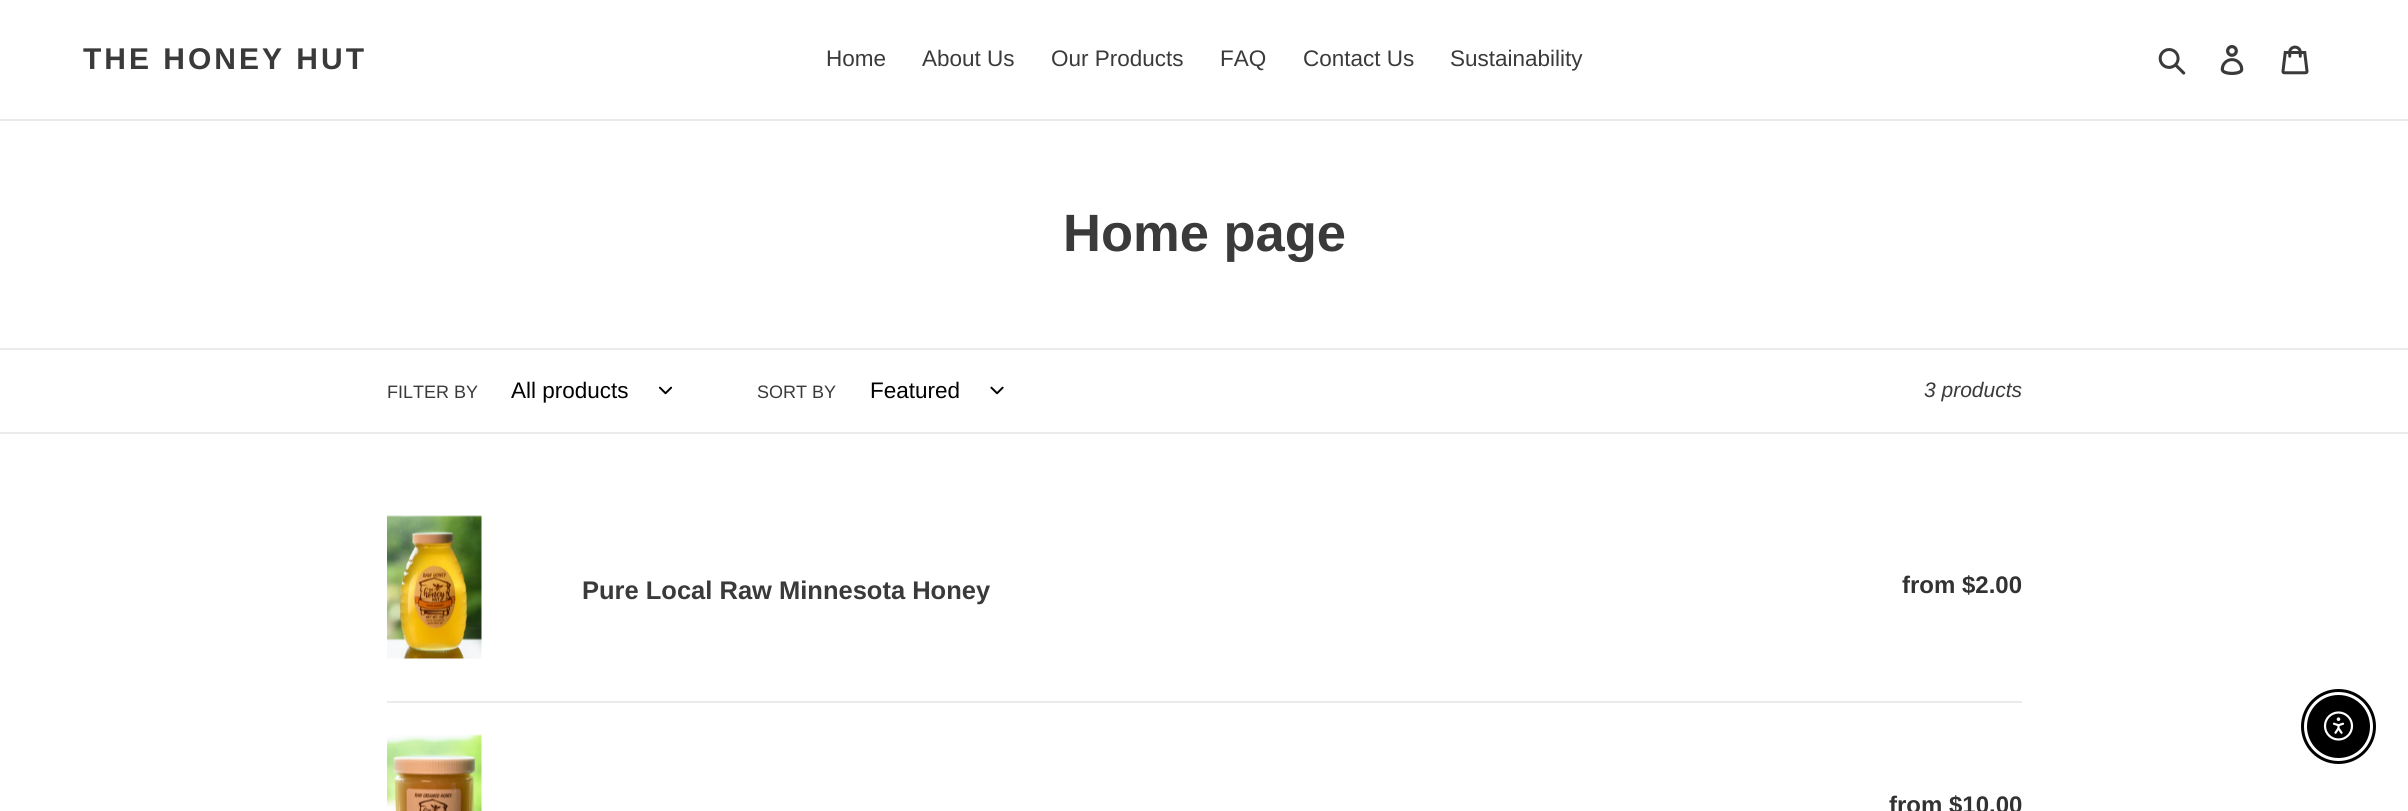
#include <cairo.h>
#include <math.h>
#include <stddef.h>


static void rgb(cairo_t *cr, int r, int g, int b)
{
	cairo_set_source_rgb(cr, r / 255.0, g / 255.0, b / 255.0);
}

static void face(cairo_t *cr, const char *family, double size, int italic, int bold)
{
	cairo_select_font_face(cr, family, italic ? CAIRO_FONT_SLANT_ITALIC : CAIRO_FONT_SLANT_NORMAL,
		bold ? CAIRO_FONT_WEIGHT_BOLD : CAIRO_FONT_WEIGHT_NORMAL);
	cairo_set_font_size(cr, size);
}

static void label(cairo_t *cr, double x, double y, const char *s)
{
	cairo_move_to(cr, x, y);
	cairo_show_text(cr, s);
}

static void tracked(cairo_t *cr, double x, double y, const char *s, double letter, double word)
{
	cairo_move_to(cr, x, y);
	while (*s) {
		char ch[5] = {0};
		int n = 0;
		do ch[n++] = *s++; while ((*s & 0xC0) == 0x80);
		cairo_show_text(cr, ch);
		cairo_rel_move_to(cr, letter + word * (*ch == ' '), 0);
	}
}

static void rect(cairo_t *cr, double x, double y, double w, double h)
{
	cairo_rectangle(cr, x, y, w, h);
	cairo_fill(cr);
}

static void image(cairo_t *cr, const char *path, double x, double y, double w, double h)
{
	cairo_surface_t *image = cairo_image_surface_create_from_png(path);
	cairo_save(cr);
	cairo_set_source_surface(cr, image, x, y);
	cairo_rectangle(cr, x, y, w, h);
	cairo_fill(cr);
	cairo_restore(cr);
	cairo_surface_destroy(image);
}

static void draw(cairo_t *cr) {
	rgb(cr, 255, 255, 255);
	cairo_paint(cr);
	rgb(cr, 235, 235, 235);
	rect(cr, 0, 119, 2408, 2);
	face(cr, "Liberation Sans", 30, 0, 1);
	rgb(cr, 58, 58, 58);
	tracked(cr, 83, 69, "THE HONEY HUT", 3, 0);
	face(cr, "Liberation Sans", 22.5, 0, 0);
	label(cr, 826, 66, "Home");
	label(cr, 922, 66, "About Us");
	label(cr, 1051, 66, "Our Products");
	label(cr, 1220, 66, "FAQ");
	label(cr, 1303, 66, "Contact Us");
	label(cr, 1450, 66, "Sustainability");
	image(cr, "image0.png", 2158, 48, 28, 27);
	image(cr, "image1.png", 2220, 45, 24, 30);
	image(cr, "image2.png", 2281, 45, 28, 30);
	face(cr, "Liberation Sans", 52.5, 0, 1);
	label(cr, 1063, 251, "Home page");
	rgb(cr, 235, 235, 235);
	rect(cr, 0, 348, 2408, 2);
	rect(cr, 0, 432, 2408, 2);
	face(cr, "Liberation Sans", 18, 0, 0);
	rgb(cr, 58, 58, 58);
	label(cr, 387, 398, "FILTER BY");
	face(cr, "Liberation Sans", 22.5, 0, 0);
	rgb(cr, 0, 0, 0);
	label(cr, 511, 398, "All products");
	image(cr, "image3.png", 659, 386, 14, 9);
	face(cr, "Liberation Sans", 18, 0, 0);
	rgb(cr, 58, 58, 58);
	label(cr, 757, 398, "SORT BY");
	face(cr, "Liberation Sans", 22.5, 0, 0);
	rgb(cr, 0, 0, 0);
	label(cr, 870, 398, "Featured");
	image(cr, "image4.png", 990, 386, 14, 9);
	face(cr, "Liberation Sans", 21, 1, 0);
	rgb(cr, 58, 58, 58);
	label(cr, 1924, 397, "3 products");
	rgb(cr, 235, 235, 235);
	rect(cr, 387, 701, 1635, 2);
	image(cr, "image5.png", 387, 515, 95, 144);
	face(cr, "Liberation Sans", 25.5, 0, 1);
	rgb(cr, 58, 58, 58);
	label(cr, 582, 599, "Pure Local Raw Minnesota Honey");
	face(cr, "Liberation Sans", 24, 0, 1);
	rgb(cr, 51, 50, 50);
	label(cr, 1902, 593, "from $2.00");
	image(cr, "image6.png", 387, 734, 95, 77);
	label(cr, 1889, 813, "from $10.00");
	cairo_new_path(cr);
	cairo_arc(cr, 2338.5, 726.5, 36, 0, 2 * M_PI);
	rgb(cr, 0, 0, 0);
	cairo_set_line_width(cr, 3);
	cairo_stroke(cr);
	cairo_arc(cr, 2338.5, 726.5, 30.5, 0, 2 * M_PI);
	cairo_fill_preserve(cr);
	cairo_set_line_width(cr, 2);
	cairo_stroke(cr);
	image(cr, "image7.png", 2323, 711, 31, 30);
}

int main(void) {
	cairo_surface_t *surface = cairo_image_surface_create(CAIRO_FORMAT_RGB24, 2408, 811);
	cairo_t *cr = cairo_create(surface);
	cairo_font_options_t *options = cairo_font_options_create();
	cairo_font_options_set_hint_metrics(options, CAIRO_HINT_METRICS_OFF);
	cairo_font_options_set_hint_style(options, CAIRO_HINT_STYLE_NONE);
	cairo_set_font_options(cr, options);
	cairo_set_miter_limit(cr, 4);
	draw(cr);
	cairo_surface_write_to_png(surface, "render.png");
	cairo_font_options_destroy(options);
	cairo_destroy(cr);
	cairo_surface_destroy(surface);
	return 0;
}
